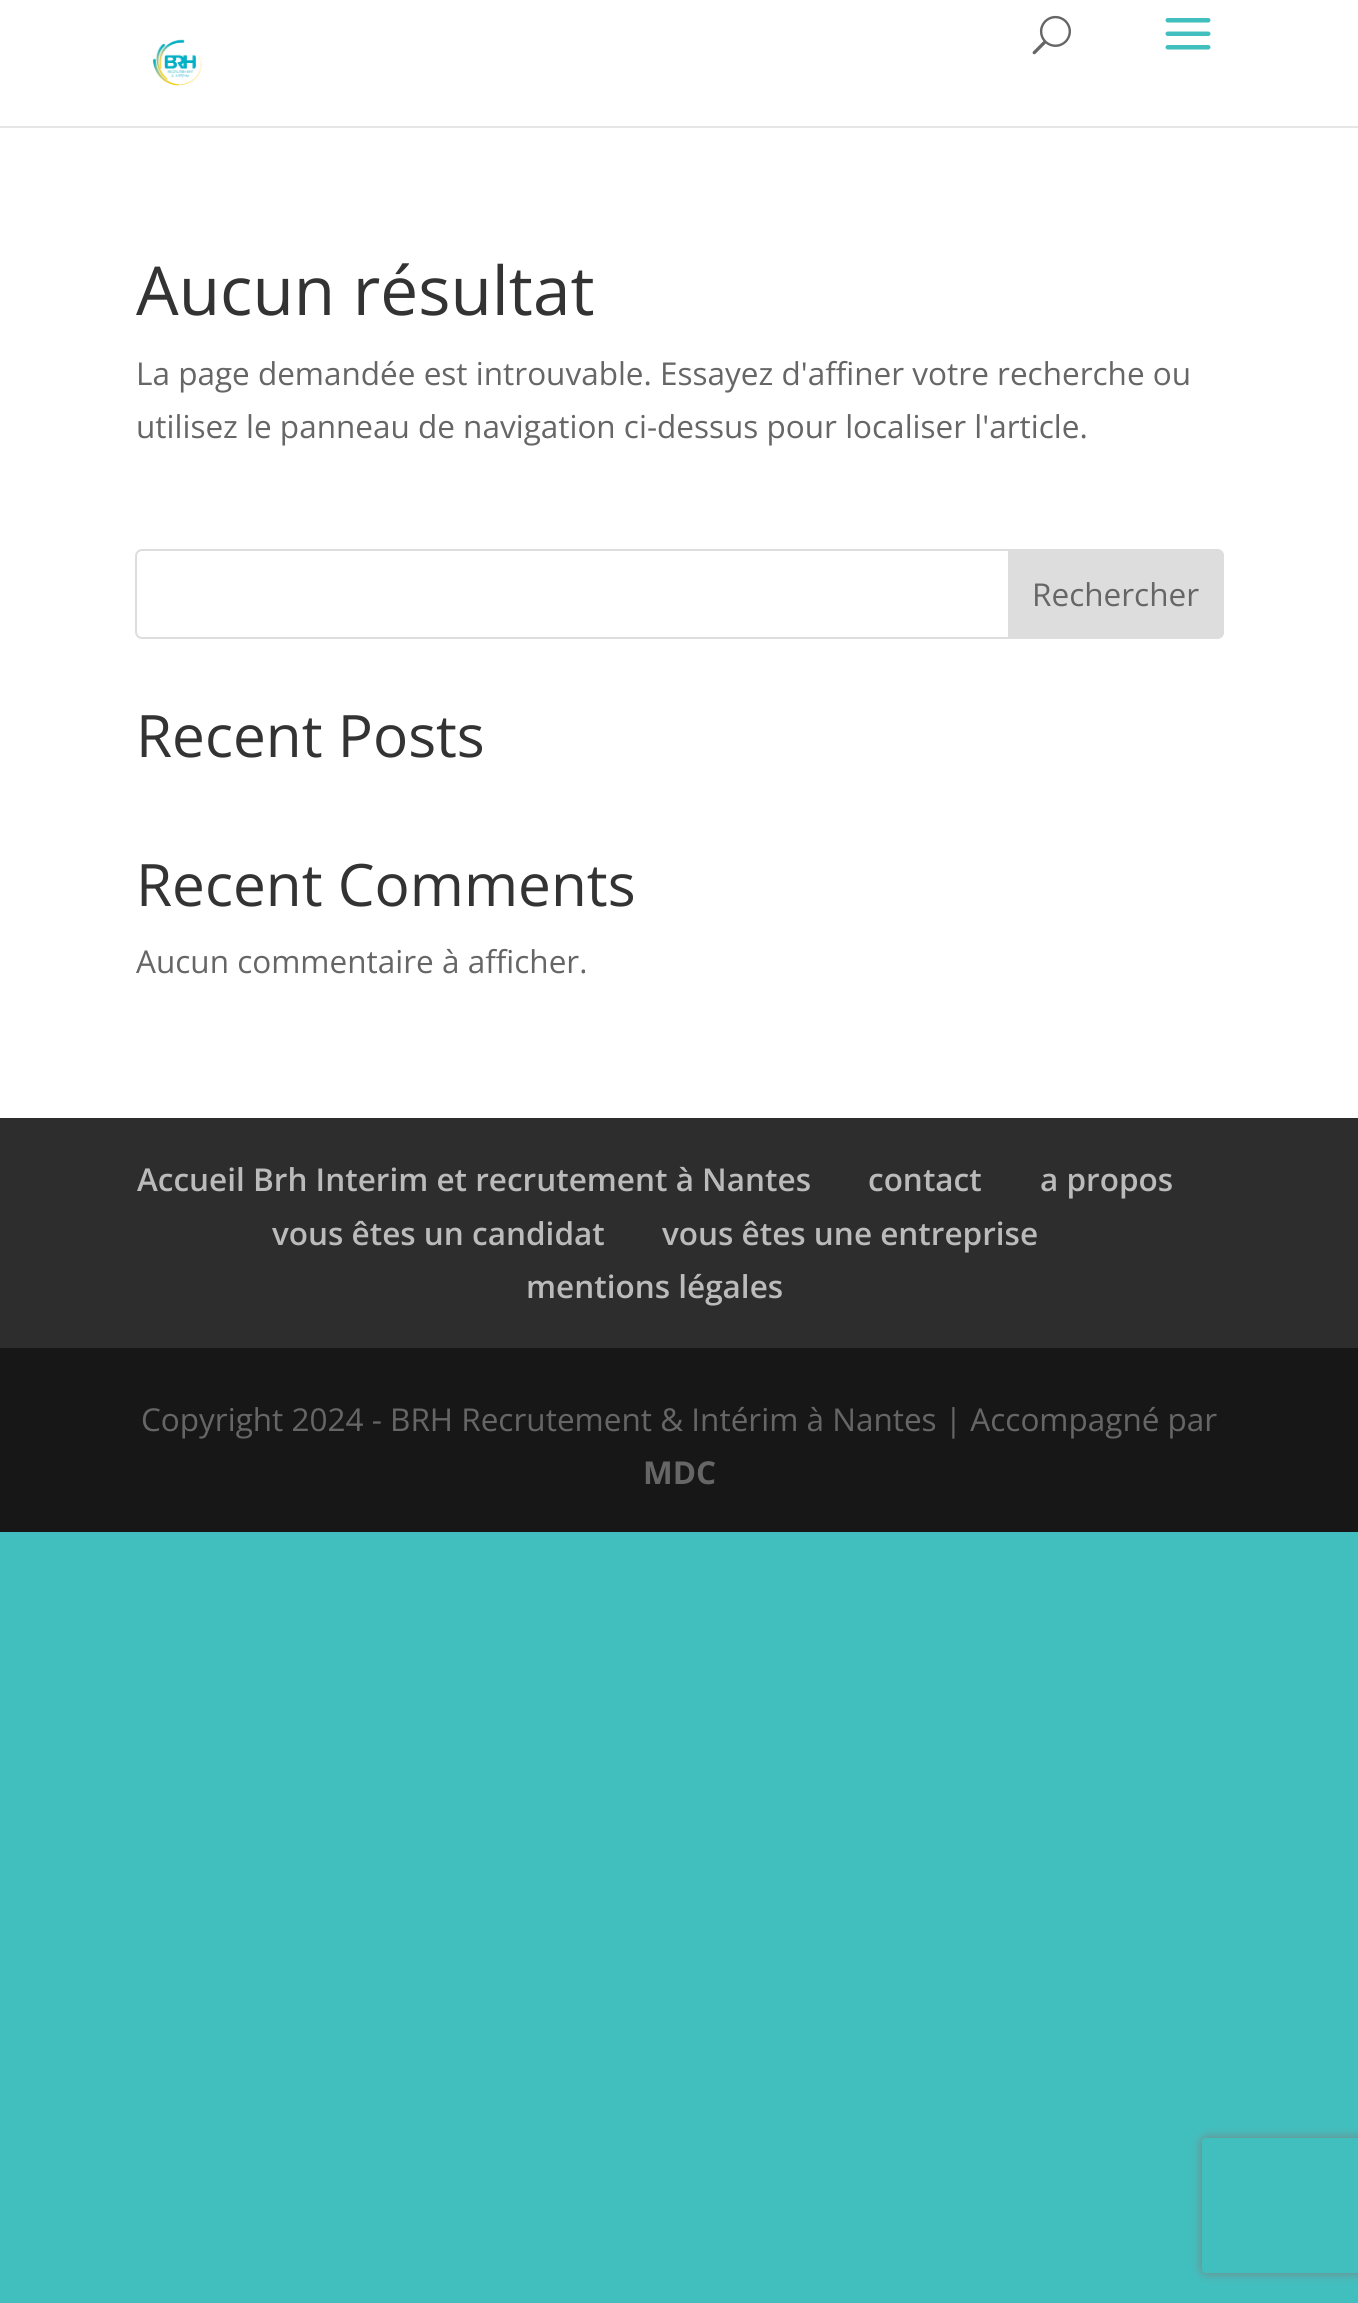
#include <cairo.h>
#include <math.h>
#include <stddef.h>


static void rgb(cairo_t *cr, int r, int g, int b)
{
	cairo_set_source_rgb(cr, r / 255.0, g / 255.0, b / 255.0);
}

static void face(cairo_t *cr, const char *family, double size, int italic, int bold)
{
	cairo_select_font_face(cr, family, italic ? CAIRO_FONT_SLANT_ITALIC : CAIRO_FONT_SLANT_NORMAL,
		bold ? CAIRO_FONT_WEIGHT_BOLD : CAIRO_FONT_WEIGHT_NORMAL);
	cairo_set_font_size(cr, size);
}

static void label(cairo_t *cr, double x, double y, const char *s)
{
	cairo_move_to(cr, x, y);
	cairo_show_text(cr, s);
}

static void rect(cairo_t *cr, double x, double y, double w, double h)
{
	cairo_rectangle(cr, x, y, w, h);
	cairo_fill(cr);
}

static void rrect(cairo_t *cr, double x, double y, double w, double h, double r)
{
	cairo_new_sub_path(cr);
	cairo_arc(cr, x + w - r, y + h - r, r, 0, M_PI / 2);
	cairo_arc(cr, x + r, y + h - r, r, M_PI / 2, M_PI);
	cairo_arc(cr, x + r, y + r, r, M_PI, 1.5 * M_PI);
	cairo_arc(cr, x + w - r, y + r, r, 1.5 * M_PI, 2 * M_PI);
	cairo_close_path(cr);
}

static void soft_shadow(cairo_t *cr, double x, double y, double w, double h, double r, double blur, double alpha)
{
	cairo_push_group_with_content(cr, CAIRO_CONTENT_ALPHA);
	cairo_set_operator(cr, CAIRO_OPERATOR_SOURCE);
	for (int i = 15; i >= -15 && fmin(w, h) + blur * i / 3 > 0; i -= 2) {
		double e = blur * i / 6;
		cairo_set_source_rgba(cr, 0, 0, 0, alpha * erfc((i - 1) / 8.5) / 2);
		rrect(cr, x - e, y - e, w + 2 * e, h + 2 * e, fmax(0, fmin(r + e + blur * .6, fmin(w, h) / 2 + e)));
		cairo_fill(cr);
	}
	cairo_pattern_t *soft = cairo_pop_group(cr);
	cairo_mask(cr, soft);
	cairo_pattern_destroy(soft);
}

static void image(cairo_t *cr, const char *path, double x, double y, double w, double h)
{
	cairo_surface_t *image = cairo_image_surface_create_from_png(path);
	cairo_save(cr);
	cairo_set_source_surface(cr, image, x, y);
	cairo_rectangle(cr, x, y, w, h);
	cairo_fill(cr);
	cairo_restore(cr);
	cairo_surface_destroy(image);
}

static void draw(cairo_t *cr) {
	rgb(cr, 65, 191, 191);
	cairo_paint(cr);
	rgb(cr, 230, 230, 230);
	rect(cr, 0, 126, 1358, 2);
	rgb(cr, 255, 255, 255);
	rect(cr, 0, 0, 1358, 126);
	image(cr, "image0.png", 1032, 15, 39, 40);
	image(cr, "image1.png", 1165, 18, 46, 32);
	image(cr, "image2.png", 152, 39, 50, 47);
	rect(cr, 0, 128, 1358, 990);
	face(cr, "Open Sans", 67.5, 0, 0);
	rgb(cr, 51, 51, 51);
	label(cr, 136, 315, "Aucun résultat");
	face(cr, "Open Sans", 31.5, 0, 0);
	rgb(cr, 102, 102, 102);
	label(cr, 136, 385, "La page demandée est introuvable. Essayez d'affiner votre recherche ou");
	label(cr, 136, 438, "utilisez le panneau de navigation ci-dessus pour localiser l'article.");
	rrect(cr, 136, 550, 1087, 88, 6);
	rgb(cr, 221, 221, 221);
	cairo_stroke(cr);
	cairo_new_path(cr);
	cairo_move_to(cr, 1009, 550);
	cairo_line_to(cr, 1217, 550);
	cairo_curve_to(cr, 1220.5, 550, 1223, 552.5, 1223, 556);
	cairo_line_to(cr, 1223, 632);
	cairo_curve_to(cr, 1223, 635.5, 1220.5, 638, 1217, 638);
	cairo_line_to(cr, 1009, 638);
	cairo_close_path(cr);
	cairo_fill_preserve(cr);
	cairo_stroke(cr);
	rgb(cr, 102, 102, 102);
	label(cr, 1032, 606, "Rechercher");
	face(cr, "Open Sans", 58.5, 0, 0);
	rgb(cr, 51, 51, 51);
	label(cr, 136, 757, "Recent Posts");
	label(cr, 136, 906, "Recent Comments");
	face(cr, "Open Sans", 31.5, 0, 0);
	rgb(cr, 102, 102, 102);
	label(cr, 136, 973, "Aucun commentaire à afficher.");
	rgb(cr, 45, 45, 45);
	rect(cr, 0, 1118, 1358, 230);
	face(cr, "Open Sans SemiBold", 31.5, 0, 0);
	rgb(cr, 187, 187, 187);
	label(cr, 137, 1191, "Accueil Brh Interim et recrutement à Nantes");
	label(cr, 868, 1191, "contact");
	label(cr, 1040, 1191, "a propos");
	label(cr, 272, 1245, "vous êtes un candidat");
	label(cr, 662, 1245, "vous êtes une entreprise");
	label(cr, 526, 1298, "mentions légales");
	rgb(cr, 23, 23, 23);
	rect(cr, 0, 1348, 1358, 184);
	face(cr, "Open Sans", 31.5, 0, 0);
	rgb(cr, 102, 102, 102);
	label(cr, 141, 1431, "Copyright 2024 - BRH Recrutement & Intérim à Nantes | Accompagné par");
	face(cr, "Open Sans", 31.5, 0, 1);
	label(cr, 643, 1484, "MDC");
	cairo_save(cr);
	cairo_set_fill_rule(cr, CAIRO_FILL_RULE_EVEN_ODD);
	cairo_new_path(cr);
	cairo_move_to(cr, 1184, 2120);
	cairo_line_to(cr, 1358, 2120);
	cairo_line_to(cr, 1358, 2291);
	cairo_line_to(cr, 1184, 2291);
	cairo_close_path(cr);
	cairo_move_to(cr, 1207, 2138);
	cairo_line_to(cr, 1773, 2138);
	cairo_curve_to(cr, 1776, 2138, 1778, 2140, 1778, 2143);
	cairo_line_to(cr, 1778, 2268);
	cairo_curve_to(cr, 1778, 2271, 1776, 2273, 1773, 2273);
	cairo_line_to(cr, 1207, 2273);
	cairo_curve_to(cr, 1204, 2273, 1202, 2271, 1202, 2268);
	cairo_line_to(cr, 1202, 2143);
	cairo_curve_to(cr, 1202, 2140, 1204, 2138, 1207, 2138);
	cairo_close_path(cr);
	cairo_clip(cr);
	rgb(cr, 128, 128, 128);
	soft_shadow(cr, 1202, 2138, 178, 135, 5, 5.5, 1);
	cairo_restore(cr);
}

int main(void) {
	cairo_surface_t *surface = cairo_image_surface_create(CAIRO_FORMAT_RGB24, 1358, 2303);
	cairo_t *cr = cairo_create(surface);
	cairo_font_options_t *options = cairo_font_options_create();
	cairo_font_options_set_hint_metrics(options, CAIRO_HINT_METRICS_OFF);
	cairo_font_options_set_hint_style(options, CAIRO_HINT_STYLE_NONE);
	cairo_set_font_options(cr, options);
	cairo_set_miter_limit(cr, 4);
	draw(cr);
	cairo_surface_write_to_png(surface, "render.png");
	cairo_font_options_destroy(options);
	cairo_destroy(cr);
	cairo_surface_destroy(surface);
	return 0;
}
